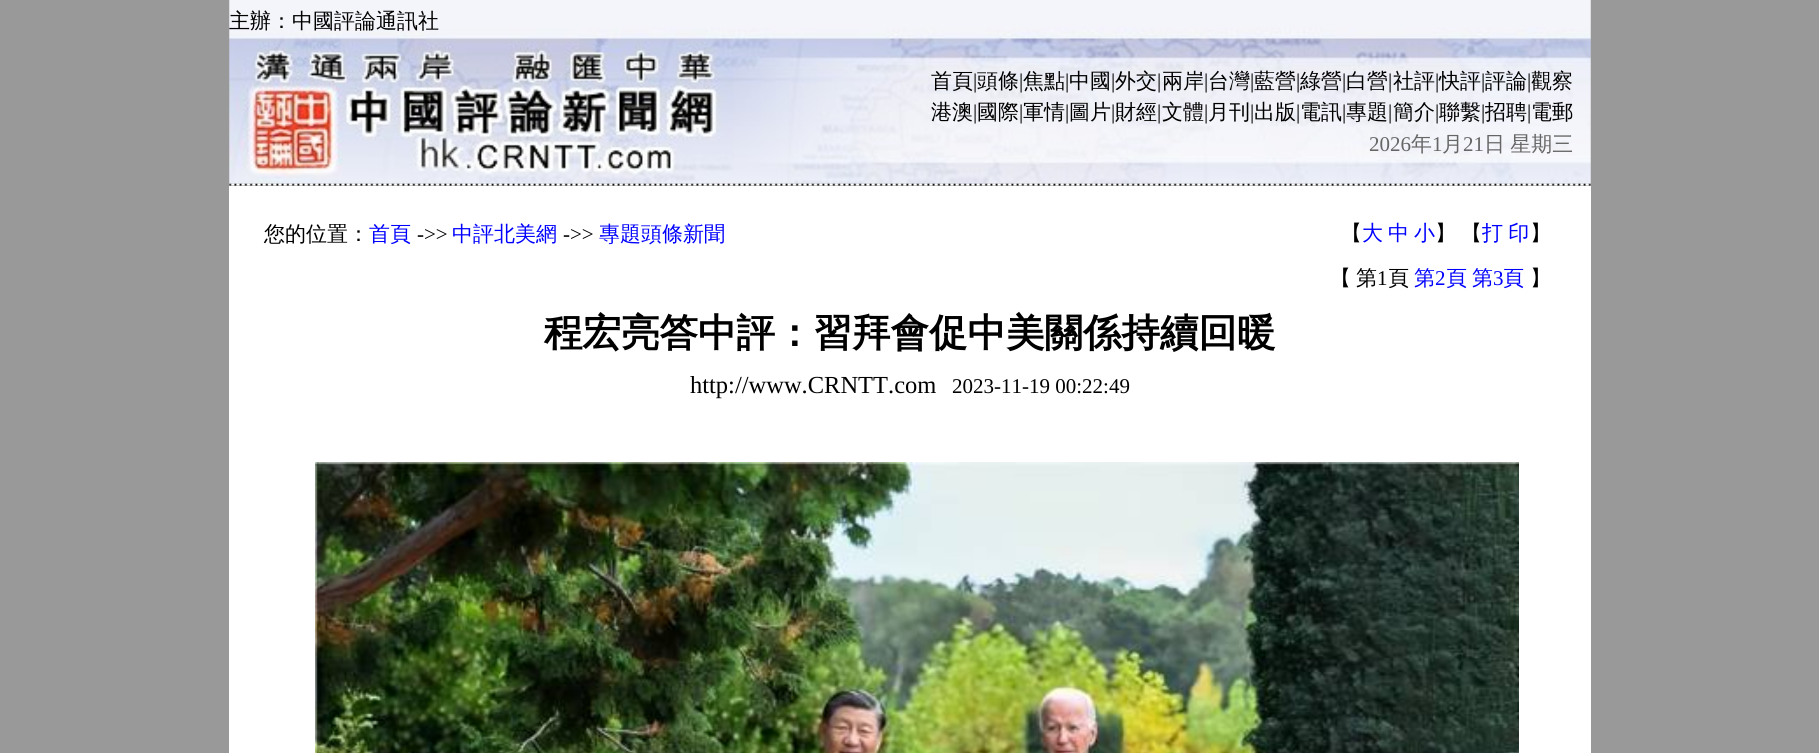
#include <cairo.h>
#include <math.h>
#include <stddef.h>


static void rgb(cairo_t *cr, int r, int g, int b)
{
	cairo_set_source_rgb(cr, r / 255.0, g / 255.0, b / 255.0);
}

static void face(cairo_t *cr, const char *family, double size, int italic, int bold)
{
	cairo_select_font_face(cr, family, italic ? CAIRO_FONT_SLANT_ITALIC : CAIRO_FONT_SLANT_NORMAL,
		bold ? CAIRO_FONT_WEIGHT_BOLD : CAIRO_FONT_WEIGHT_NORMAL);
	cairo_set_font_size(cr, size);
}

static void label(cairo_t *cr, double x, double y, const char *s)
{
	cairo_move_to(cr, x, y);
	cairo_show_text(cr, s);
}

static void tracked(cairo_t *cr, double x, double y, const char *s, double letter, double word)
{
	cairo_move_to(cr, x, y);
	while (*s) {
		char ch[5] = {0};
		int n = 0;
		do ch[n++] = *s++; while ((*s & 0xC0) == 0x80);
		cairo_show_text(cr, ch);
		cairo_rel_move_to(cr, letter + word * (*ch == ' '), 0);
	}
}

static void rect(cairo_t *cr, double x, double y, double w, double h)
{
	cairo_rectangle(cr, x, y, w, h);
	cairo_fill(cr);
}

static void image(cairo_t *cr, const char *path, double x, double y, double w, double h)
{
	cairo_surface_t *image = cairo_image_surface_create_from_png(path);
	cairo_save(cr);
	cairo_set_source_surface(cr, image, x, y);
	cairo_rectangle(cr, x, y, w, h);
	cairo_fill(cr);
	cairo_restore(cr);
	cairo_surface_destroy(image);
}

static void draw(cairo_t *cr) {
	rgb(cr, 153, 153, 153);
	cairo_paint(cr);
	image(cr, "image0.png", 229, 0, 1362, 184);
	face(cr, "WenQuanYi Zen Hei Medium", 21, 0, 0);
	rgb(cr, 0, 0, 0);
	label(cr, 229, 28, "主辦：中國評論通訊社");
	label(cr, 931, 88, "首頁");
	face(cr, "Liberation Serif", 21, 0, 0);
	label(cr, 973, 88, "|");
	face(cr, "WenQuanYi Zen Hei Medium", 21, 0, 0);
	label(cr, 977, 88, "頭條");
	face(cr, "Liberation Serif", 21, 0, 0);
	label(cr, 1019, 88, "|");
	face(cr, "WenQuanYi Zen Hei Medium", 21, 0, 0);
	label(cr, 1023, 88, "焦點");
	face(cr, "Liberation Serif", 21, 0, 0);
	label(cr, 1065, 88, "|");
	face(cr, "WenQuanYi Zen Hei Medium", 21, 0, 0);
	label(cr, 1069, 88, "中國");
	face(cr, "Liberation Serif", 21, 0, 0);
	label(cr, 1111, 88, "|");
	face(cr, "WenQuanYi Zen Hei Medium", 21, 0, 0);
	label(cr, 1115, 88, "外交");
	face(cr, "Liberation Serif", 21, 0, 0);
	label(cr, 1157, 88, "|");
	face(cr, "WenQuanYi Zen Hei Medium", 21, 0, 0);
	label(cr, 1162, 88, "兩岸");
	face(cr, "Liberation Serif", 21, 0, 0);
	label(cr, 1204, 88, "|");
	face(cr, "WenQuanYi Zen Hei Medium", 21, 0, 0);
	label(cr, 1208, 88, "台灣");
	face(cr, "Liberation Serif", 21, 0, 0);
	label(cr, 1250, 88, "|");
	face(cr, "WenQuanYi Zen Hei Medium", 21, 0, 0);
	label(cr, 1254, 88, "藍營");
	face(cr, "Liberation Serif", 21, 0, 0);
	label(cr, 1296, 88, "|");
	face(cr, "WenQuanYi Zen Hei Medium", 21, 0, 0);
	label(cr, 1300, 88, "綠營");
	face(cr, "Liberation Serif", 21, 0, 0);
	label(cr, 1342, 88, "|");
	face(cr, "WenQuanYi Zen Hei Medium", 21, 0, 0);
	label(cr, 1346, 88, "白營");
	face(cr, "Liberation Serif", 21, 0, 0);
	label(cr, 1388, 88, "|");
	face(cr, "WenQuanYi Zen Hei Medium", 21, 0, 0);
	label(cr, 1393, 88, "社評");
	face(cr, "Liberation Serif", 21, 0, 0);
	label(cr, 1435, 88, "|");
	face(cr, "WenQuanYi Zen Hei Medium", 21, 0, 0);
	label(cr, 1439, 88, "快評");
	face(cr, "Liberation Serif", 21, 0, 0);
	label(cr, 1481, 88, "|");
	face(cr, "WenQuanYi Zen Hei Medium", 21, 0, 0);
	label(cr, 1485, 88, "評論");
	face(cr, "Liberation Serif", 21, 0, 0);
	label(cr, 1527, 88, "|");
	face(cr, "WenQuanYi Zen Hei Medium", 21, 0, 0);
	label(cr, 1531, 88, "觀察");
	label(cr, 931, 119, "港澳");
	face(cr, "Liberation Serif", 21, 0, 0);
	label(cr, 973, 119, "|");
	face(cr, "WenQuanYi Zen Hei Medium", 21, 0, 0);
	label(cr, 977, 119, "國際");
	face(cr, "Liberation Serif", 21, 0, 0);
	label(cr, 1019, 119, "|");
	face(cr, "WenQuanYi Zen Hei Medium", 21, 0, 0);
	label(cr, 1023, 119, "軍情");
	face(cr, "Liberation Serif", 21, 0, 0);
	label(cr, 1065, 119, "|");
	face(cr, "WenQuanYi Zen Hei Medium", 21, 0, 0);
	label(cr, 1069, 119, "圖片");
	face(cr, "Liberation Serif", 21, 0, 0);
	label(cr, 1111, 119, "|");
	face(cr, "WenQuanYi Zen Hei Medium", 21, 0, 0);
	label(cr, 1115, 119, "財經");
	face(cr, "Liberation Serif", 21, 0, 0);
	label(cr, 1157, 119, "|");
	face(cr, "WenQuanYi Zen Hei Medium", 21, 0, 0);
	label(cr, 1162, 119, "文體");
	face(cr, "Liberation Serif", 21, 0, 0);
	label(cr, 1204, 119, "|");
	face(cr, "WenQuanYi Zen Hei Medium", 21, 0, 0);
	label(cr, 1208, 119, "月刊");
	face(cr, "Liberation Serif", 21, 0, 0);
	label(cr, 1250, 119, "|");
	face(cr, "WenQuanYi Zen Hei Medium", 21, 0, 0);
	label(cr, 1254, 119, "出版");
	face(cr, "Liberation Serif", 21, 0, 0);
	label(cr, 1296, 119, "|");
	face(cr, "WenQuanYi Zen Hei Medium", 21, 0, 0);
	label(cr, 1300, 119, "電訊");
	face(cr, "Liberation Serif", 21, 0, 0);
	label(cr, 1342, 119, "|");
	face(cr, "WenQuanYi Zen Hei Medium", 21, 0, 0);
	label(cr, 1346, 119, "專題");
	face(cr, "Liberation Serif", 21, 0, 0);
	label(cr, 1388, 119, "|");
	face(cr, "WenQuanYi Zen Hei Medium", 21, 0, 0);
	label(cr, 1393, 119, "簡介");
	face(cr, "Liberation Serif", 21, 0, 0);
	label(cr, 1435, 119, "|");
	face(cr, "WenQuanYi Zen Hei Medium", 21, 0, 0);
	label(cr, 1439, 119, "聯繫");
	face(cr, "Liberation Serif", 21, 0, 0);
	label(cr, 1481, 119, "|");
	face(cr, "WenQuanYi Zen Hei Medium", 21, 0, 0);
	label(cr, 1485, 119, "招聘");
	face(cr, "Liberation Serif", 21, 0, 0);
	label(cr, 1527, 119, "|");
	face(cr, "WenQuanYi Zen Hei Medium", 21, 0, 0);
	label(cr, 1531, 119, "電郵");
	face(cr, "Liberation Serif", 21, 0, 0);
	rgb(cr, 102, 102, 102);
	label(cr, 1369, 151, "2026");
	face(cr, "WenQuanYi Zen Hei Medium", 21, 0, 0);
	label(cr, 1411, 151, "年");
	face(cr, "Liberation Serif", 21, 0, 0);
	label(cr, 1432, 151, "1");
	face(cr, "WenQuanYi Zen Hei Medium", 21, 0, 0);
	label(cr, 1442, 151, "月");
	face(cr, "Liberation Serif", 21, 0, 0);
	label(cr, 1463, 151, "21");
	face(cr, "WenQuanYi Zen Hei Medium", 21, 0, 0);
	tracked(cr, 1484, 151, "日 星期三", 0, -1);
	image(cr, "image1.png", 229, 183, 1362, 3);
	rgb(cr, 255, 255, 255);
	rect(cr, 229, 186, 1362, 567);
	rgb(cr, 0, 0, 0);
	label(cr, 264, 241, "您的位置：");
	rgb(cr, 0, 0, 255);
	label(cr, 369, 241, "首頁");
	face(cr, "Liberation Serif", 21, 0, 0);
	rgb(cr, 0, 0, 0);
	label(cr, 417, 241, "->>");
	face(cr, "WenQuanYi Zen Hei Medium", 21, 0, 0);
	rgb(cr, 0, 0, 255);
	label(cr, 452, 241, "中評北美網");
	face(cr, "Liberation Serif", 21, 0, 0);
	rgb(cr, 0, 0, 0);
	label(cr, 563, 241, "->>");
	face(cr, "WenQuanYi Zen Hei Medium", 21, 0, 0);
	rgb(cr, 0, 0, 255);
	label(cr, 599, 241, "專題頭條新聞");
	rgb(cr, 0, 0, 0);
	label(cr, 1341, 240, "【");
	rgb(cr, 0, 0, 255);
	label(cr, 1362, 240, "大");
	label(cr, 1388, 240, "中");
	label(cr, 1414, 240, "小");
	rgb(cr, 0, 0, 0);
	label(cr, 1435, 240, "】");
	label(cr, 1461, 240, "【");
	rgb(cr, 0, 0, 255);
	tracked(cr, 1482, 240, "打 印", 0, -1);
	rgb(cr, 0, 0, 0);
	label(cr, 1530, 240, "】");
	label(cr, 1330, 285, "【");
	label(cr, 1356, 285, "第");
	face(cr, "Liberation Serif", 21, 0, 0);
	label(cr, 1377, 285, "1");
	face(cr, "WenQuanYi Zen Hei Medium", 21, 0, 0);
	label(cr, 1388, 285, "頁");
	rgb(cr, 0, 0, 255);
	label(cr, 1414, 285, "第");
	face(cr, "Liberation Serif", 21, 0, 0);
	label(cr, 1435, 285, "2");
	face(cr, "WenQuanYi Zen Hei Medium", 21, 0, 0);
	label(cr, 1446, 285, "頁");
	label(cr, 1472, 285, "第");
	face(cr, "Liberation Serif", 21, 0, 0);
	label(cr, 1493, 285, "3");
	face(cr, "WenQuanYi Zen Hei Medium", 21, 0, 0);
	label(cr, 1503, 285, "頁");
	rgb(cr, 0, 0, 0);
	label(cr, 1530, 285, "】");
	face(cr, "WenQuanYi Zen Hei", 38.5, 0, 1);
	label(cr, 544, 346, "程宏亮答中評：習拜會促中美關係持續回暖");
	face(cr, "Liberation Serif", 24.5, 0, 0);
	label(cr, 690, 393, "http://www.CRNTT.com");
	face(cr, "Liberation Serif", 21, 0, 0);
	label(cr, 952, 393, "2023-11-19 00:22:49");
	image(cr, "image2.png", 315, 462, 1204, 291);
}

int main(void) {
	cairo_surface_t *surface = cairo_image_surface_create(CAIRO_FORMAT_RGB24, 1819, 753);
	cairo_t *cr = cairo_create(surface);
	cairo_font_options_t *options = cairo_font_options_create();
	cairo_font_options_set_hint_metrics(options, CAIRO_HINT_METRICS_OFF);
	cairo_font_options_set_hint_style(options, CAIRO_HINT_STYLE_NONE);
	cairo_set_font_options(cr, options);
	cairo_set_miter_limit(cr, 4);
	draw(cr);
	cairo_surface_write_to_png(surface, "render.png");
	cairo_font_options_destroy(options);
	cairo_destroy(cr);
	cairo_surface_destroy(surface);
	return 0;
}
